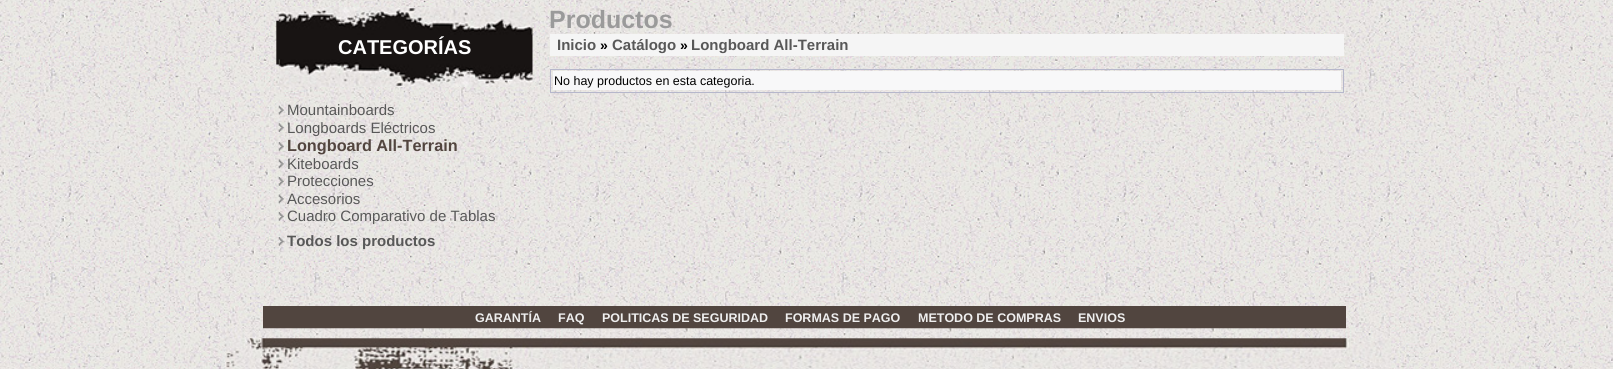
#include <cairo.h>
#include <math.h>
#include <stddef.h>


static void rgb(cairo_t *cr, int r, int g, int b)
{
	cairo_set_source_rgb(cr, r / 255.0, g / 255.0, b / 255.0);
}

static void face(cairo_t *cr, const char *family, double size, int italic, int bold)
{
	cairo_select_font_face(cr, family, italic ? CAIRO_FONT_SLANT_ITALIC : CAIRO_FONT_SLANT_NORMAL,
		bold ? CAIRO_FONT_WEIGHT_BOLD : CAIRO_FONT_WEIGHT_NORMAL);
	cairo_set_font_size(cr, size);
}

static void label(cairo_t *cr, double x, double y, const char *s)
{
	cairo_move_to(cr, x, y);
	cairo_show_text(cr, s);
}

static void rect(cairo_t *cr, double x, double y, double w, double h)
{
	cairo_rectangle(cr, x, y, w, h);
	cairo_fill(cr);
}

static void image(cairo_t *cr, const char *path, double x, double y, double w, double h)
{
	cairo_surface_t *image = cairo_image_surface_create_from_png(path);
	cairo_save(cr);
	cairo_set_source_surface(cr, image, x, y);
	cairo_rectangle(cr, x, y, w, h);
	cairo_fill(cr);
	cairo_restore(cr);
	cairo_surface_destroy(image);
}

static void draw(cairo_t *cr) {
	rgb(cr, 255, 255, 255);
	cairo_paint(cr);
	image(cr, "image0.png", 0, 0, 1613, 369);
	image(cr, "image1.png", 273, 7, 264, 80);
	image(cr, "image2.png", 273, 21, 264, 60);
	face(cr, "Liberation Sans", 20, 0, 1);
	rgb(cr, 255, 255, 255);
	label(cr, 338, 54, "CATEGORÍAS");
	image(cr, "image3.png", 278, 105, 6, 10);
	face(cr, "Liberation Sans", 15, 0, 0);
	rgb(cr, 88, 88, 88);
	label(cr, 287, 115, "Mountainboards");
	image(cr, "image4.png", 278, 123, 6, 9);
	label(cr, 287, 133, "Longboards Eléctricos");
	image(cr, "image5.png", 278, 142, 6, 9);
	face(cr, "Liberation Sans", 16.25, 0, 1);
	rgb(cr, 82, 69, 63);
	label(cr, 287, 151, "Longboard All-Terrain");
	image(cr, "image6.png", 278, 159, 6, 10);
	face(cr, "Liberation Sans", 15, 0, 0);
	rgb(cr, 88, 88, 88);
	label(cr, 287, 169, "Kiteboards");
	image(cr, "image7.png", 278, 177, 6, 9);
	label(cr, 287, 186, "Protecciones");
	image(cr, "image8.png", 278, 194, 6, 10);
	label(cr, 287, 204, "Accesorios");
	image(cr, "image9.png", 278, 212, 6, 9);
	label(cr, 287, 221, "Cuadro Comparativo de Tablas");
	image(cr, "image10.png", 278, 237, 6, 9);
	face(cr, "Liberation Sans", 15, 0, 1);
	label(cr, 287, 246, "Todos los productos");
	face(cr, "Liberation Sans", 25, 0, 1);
	rgb(cr, 154, 154, 154);
	label(cr, 549, 28, "Productos");
	rgb(cr, 245, 245, 245);
	rect(cr, 550, 34, 794, 22);
	face(cr, "Liberation Sans", 15, 0, 1);
	rgb(cr, 88, 88, 88);
	label(cr, 557, 50, "Inicio");
	face(cr, "Liberation Sans", 14, 0, 1);
	rgb(cr, 0, 0, 0);
	label(cr, 600, 50, "»");
	face(cr, "Liberation Sans", 15, 0, 1);
	rgb(cr, 88, 88, 88);
	label(cr, 612, 50, "Catálogo");
	face(cr, "Liberation Sans", 14, 0, 1);
	rgb(cr, 0, 0, 0);
	label(cr, 680, 50, "»");
	face(cr, "Liberation Sans", 15, 0, 1);
	rgb(cr, 88, 88, 88);
	label(cr, 691, 50, "Longboard All-Terrain");
	cairo_rectangle(cr, 550.5, 69.5, 793, 23);
	rgb(cr, 182, 183, 203);
	cairo_set_line_width(cr, 1);
	cairo_stroke(cr);
	rgb(cr, 248, 248, 249);
	rect(cr, 553, 71, 788, 19);
	face(cr, "Liberation Sans", 12.5, 0, 0);
	rgb(cr, 0, 0, 0);
	label(cr, 554, 85, "No hay productos en esta categoria.");
	rgb(cr, 81, 69, 63);
	rect(cr, 263, 306, 1083, 23);
	face(cr, "Liberation Sans", 12.5, 0, 1);
	rgb(cr, 239, 239, 239);
	label(cr, 475, 322, "GARANTÍA");
	label(cr, 558, 322, "FAQ");
	label(cr, 602, 322, "POLITICAS DE SEGURIDAD");
	label(cr, 785, 322, "FORMAS DE PAGO");
	label(cr, 918, 322, "METODO DE COMPRAS");
	label(cr, 1078, 322, "ENVIOS");
	image(cr, "image11.png", 222, 328, 1170, 41);
}

int main(void) {
	cairo_surface_t *surface = cairo_image_surface_create(CAIRO_FORMAT_RGB24, 1613, 369);
	cairo_t *cr = cairo_create(surface);
	cairo_font_options_t *options = cairo_font_options_create();
	cairo_font_options_set_hint_metrics(options, CAIRO_HINT_METRICS_OFF);
	cairo_font_options_set_hint_style(options, CAIRO_HINT_STYLE_NONE);
	cairo_set_font_options(cr, options);
	cairo_set_miter_limit(cr, 4);
	draw(cr);
	cairo_surface_write_to_png(surface, "render.png");
	cairo_font_options_destroy(options);
	cairo_destroy(cr);
	cairo_surface_destroy(surface);
	return 0;
}
